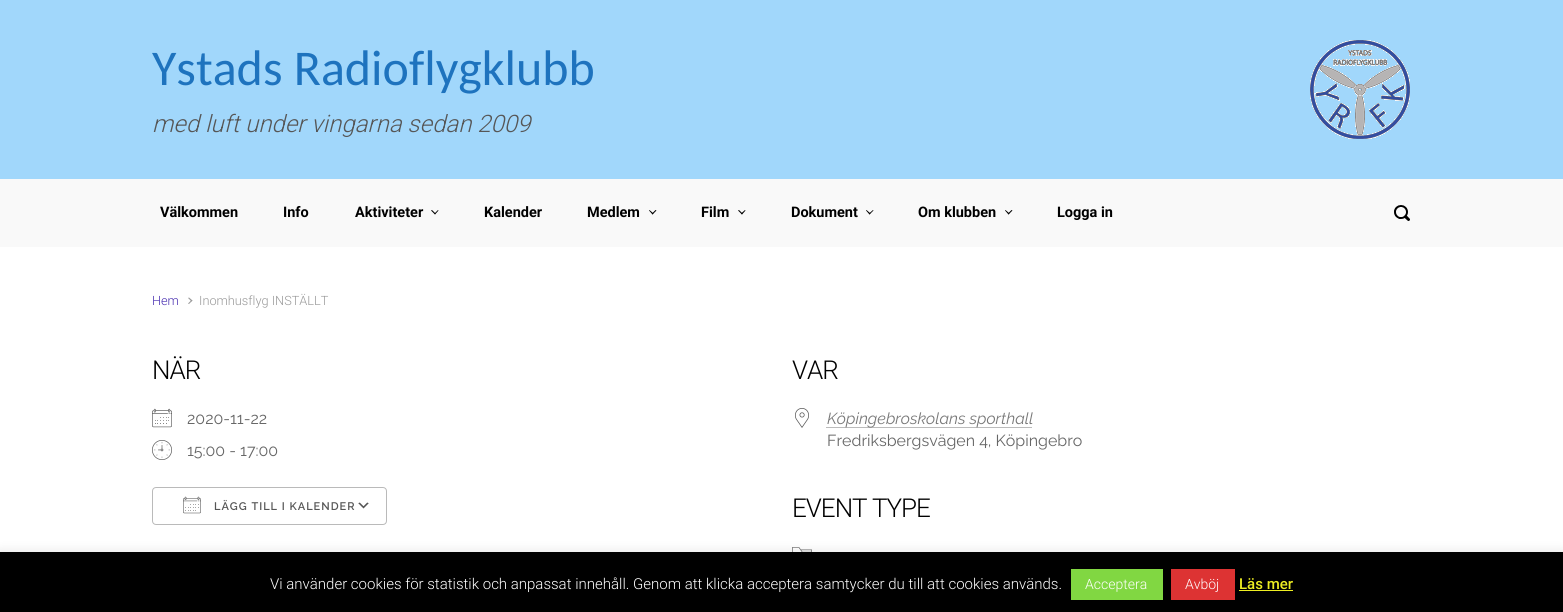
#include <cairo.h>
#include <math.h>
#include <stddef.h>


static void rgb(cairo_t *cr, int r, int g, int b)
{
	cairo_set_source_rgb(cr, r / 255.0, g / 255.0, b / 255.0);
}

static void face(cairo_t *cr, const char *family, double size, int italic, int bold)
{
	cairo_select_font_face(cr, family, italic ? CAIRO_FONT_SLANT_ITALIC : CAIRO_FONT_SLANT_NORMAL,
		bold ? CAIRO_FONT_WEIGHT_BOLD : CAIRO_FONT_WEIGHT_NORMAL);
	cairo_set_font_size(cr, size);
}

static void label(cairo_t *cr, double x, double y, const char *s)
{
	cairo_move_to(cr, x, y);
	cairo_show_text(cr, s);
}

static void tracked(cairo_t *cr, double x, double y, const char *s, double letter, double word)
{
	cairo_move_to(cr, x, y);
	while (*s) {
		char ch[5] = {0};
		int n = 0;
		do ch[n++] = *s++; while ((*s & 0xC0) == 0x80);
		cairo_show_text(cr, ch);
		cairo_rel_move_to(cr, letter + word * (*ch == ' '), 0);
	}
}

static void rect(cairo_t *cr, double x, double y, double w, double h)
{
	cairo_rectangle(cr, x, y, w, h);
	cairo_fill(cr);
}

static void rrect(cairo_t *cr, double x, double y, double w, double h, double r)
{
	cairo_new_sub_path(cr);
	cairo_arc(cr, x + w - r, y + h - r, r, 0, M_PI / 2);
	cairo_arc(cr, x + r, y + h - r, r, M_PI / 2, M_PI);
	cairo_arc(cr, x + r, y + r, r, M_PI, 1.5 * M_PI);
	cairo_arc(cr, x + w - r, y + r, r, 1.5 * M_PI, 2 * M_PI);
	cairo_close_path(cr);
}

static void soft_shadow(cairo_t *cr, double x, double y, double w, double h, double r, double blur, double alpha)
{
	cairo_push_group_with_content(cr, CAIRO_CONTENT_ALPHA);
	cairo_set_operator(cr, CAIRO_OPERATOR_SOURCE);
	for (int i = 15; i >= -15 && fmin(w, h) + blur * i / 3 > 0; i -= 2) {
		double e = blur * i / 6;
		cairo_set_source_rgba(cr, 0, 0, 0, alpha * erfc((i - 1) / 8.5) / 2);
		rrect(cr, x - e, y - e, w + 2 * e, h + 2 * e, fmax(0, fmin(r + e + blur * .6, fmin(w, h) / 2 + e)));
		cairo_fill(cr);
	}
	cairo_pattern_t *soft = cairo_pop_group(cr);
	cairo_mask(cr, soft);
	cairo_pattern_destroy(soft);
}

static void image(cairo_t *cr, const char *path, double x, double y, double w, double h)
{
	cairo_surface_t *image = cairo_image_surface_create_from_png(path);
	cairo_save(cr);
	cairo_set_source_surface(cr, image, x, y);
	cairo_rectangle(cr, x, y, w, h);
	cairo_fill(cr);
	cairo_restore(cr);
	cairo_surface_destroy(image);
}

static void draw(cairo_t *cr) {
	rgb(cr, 249, 249, 249);
	cairo_paint(cr);
	rgb(cr, 161, 215, 251);
	rect(cr, 0, 0, 1563, 179);
	face(cr, "Carlito", 50, 0, 0);
	rgb(cr, 30, 115, 190);
	label(cr, 152, 85, "Ystads Radioflygklubb");
	face(cr, "Roboto Light", 24, 1, 0);
	rgb(cr, 86, 86, 86);
	label(cr, 152, 132, "med luft under vingarna sedan 2009");
	image(cr, "image0.png", 1310, 40, 100, 99);
	face(cr, "Roboto", 14.5, 0, 1);
	rgb(cr, 0, 0, 0);
	label(cr, 160, 217, "Välkommen");
	label(cr, 283, 217, "Info");
	label(cr, 355, 217, "Aktiviteter");
	cairo_new_path(cr);
	cairo_move_to(cr, 438, 210);
	cairo_line_to(cr, 438.5, 210.5);
	cairo_line_to(cr, 435, 214.5);
	cairo_line_to(cr, 434.5, 213.5);
	cairo_close_path(cr);
	cairo_fill(cr);
	cairo_new_path(cr);
	cairo_move_to(cr, 432, 210);
	cairo_line_to(cr, 435.5, 213.5);
	cairo_line_to(cr, 435, 214.5);
	cairo_line_to(cr, 431, 210.5);
	cairo_close_path(cr);
	cairo_fill(cr);
	label(cr, 484, 217, "Kalender");
	label(cr, 587, 217, "Medlem");
	cairo_new_path(cr);
	cairo_move_to(cr, 655.5, 210);
	cairo_line_to(cr, 656.5, 210.5);
	cairo_line_to(cr, 652.5, 214.5);
	cairo_line_to(cr, 652, 213.5);
	cairo_close_path(cr);
	cairo_fill(cr);
	cairo_new_path(cr);
	cairo_move_to(cr, 649.5, 210);
	cairo_line_to(cr, 653.5, 213.5);
	cairo_line_to(cr, 652.5, 214.5);
	cairo_line_to(cr, 649, 210.5);
	cairo_close_path(cr);
	cairo_fill(cr);
	label(cr, 701, 217, "Film");
	cairo_new_path(cr);
	cairo_move_to(cr, 745, 210);
	cairo_line_to(cr, 745.5, 210.5);
	cairo_line_to(cr, 742, 214.5);
	cairo_line_to(cr, 741, 213.5);
	cairo_close_path(cr);
	cairo_fill(cr);
	cairo_new_path(cr);
	cairo_move_to(cr, 739, 210);
	cairo_line_to(cr, 742.5, 213.5);
	cairo_line_to(cr, 742, 214.5);
	cairo_line_to(cr, 738, 210.5);
	cairo_close_path(cr);
	cairo_fill(cr);
	label(cr, 791, 217, "Dokument");
	cairo_new_path(cr);
	cairo_move_to(cr, 873, 210);
	cairo_line_to(cr, 873.5, 210.5);
	cairo_line_to(cr, 869.5, 214.5);
	cairo_line_to(cr, 869, 213.5);
	cairo_close_path(cr);
	cairo_fill(cr);
	cairo_new_path(cr);
	cairo_move_to(cr, 866.5, 210);
	cairo_line_to(cr, 870.5, 213.5);
	cairo_line_to(cr, 869.5, 214.5);
	cairo_line_to(cr, 866, 210.5);
	cairo_close_path(cr);
	cairo_fill(cr);
	label(cr, 918, 217, "Om klubben");
	cairo_new_path(cr);
	cairo_move_to(cr, 1011.5, 210);
	cairo_line_to(cr, 1012.5, 210.5);
	cairo_line_to(cr, 1008.5, 214.5);
	cairo_line_to(cr, 1008, 213.5);
	cairo_close_path(cr);
	cairo_fill(cr);
	cairo_new_path(cr);
	cairo_move_to(cr, 1005.5, 210);
	cairo_line_to(cr, 1009.5, 213.5);
	cairo_line_to(cr, 1008.5, 214.5);
	cairo_line_to(cr, 1005, 210.5);
	cairo_close_path(cr);
	cairo_fill(cr);
	label(cr, 1057, 217, "Logga in");
	image(cr, "image1.png", 1394, 205, 16, 16);
	rgb(cr, 255, 255, 255);
	rect(cr, 0, 247, 1563, 305);
	face(cr, "Roboto Light", 12.75, 0, 0);
	rgb(cr, 73, 47, 177);
	label(cr, 152, 305, "Hem");
	rgb(cr, 153, 153, 153);
	cairo_new_path(cr);
	cairo_move_to(cr, 188, 298);
	cairo_line_to(cr, 189, 297.5);
	cairo_line_to(cr, 192.5, 300.5);
	cairo_line_to(cr, 191.5, 301.5);
	cairo_close_path(cr);
	cairo_fill(cr);
	cairo_new_path(cr);
	cairo_move_to(cr, 188, 303.5);
	cairo_line_to(cr, 191.5, 300);
	cairo_line_to(cr, 192.5, 300.5);
	cairo_line_to(cr, 189, 304);
	cairo_close_path(cr);
	cairo_fill(cr);
	label(cr, 199, 305, "Inomhusflyg INSTÄLLT");
	face(cr, "Roboto Light", 26, 0, 0);
	rgb(cr, 0, 0, 0);
	tracked(cr, 152, 379, "NÄR", -1, 0);
	image(cr, "image2.png", 152, 408, 20, 20);
	face(cr, "Raleway", 16, 0, 0);
	rgb(cr, 102, 102, 102);
	label(cr, 187, 424, "2020-11-22");
	image(cr, "image3.png", 152, 440, 20, 20);
	label(cr, 187, 456, "15:00 - 17:00");
	image(cr, "image4.png", 358, 502, 11, 7);
	rrect(cr, 152.5, 487.5, 234, 37, 3.5);
	rgb(cr, 186, 186, 186);
	cairo_set_line_width(cr, 1);
	cairo_stroke(cr);
	image(cr, "image5.png", 183, 496, 18, 18);
	face(cr, "Raleway SemiBold", 11, 0, 0);
	rgb(cr, 86, 86, 86);
	tracked(cr, 214, 510, "LÄGG TILL I KALENDER", 1, 0);
	face(cr, "Roboto Light", 26, 0, 0);
	rgb(cr, 0, 0, 0);
	tracked(cr, 792, 379, "VAR", -1, 0);
	image(cr, "image6.png", 795, 408, 14, 20);
	cairo_new_path(cr);
	cairo_move_to(cr, 826.5, 427.5);
	cairo_line_to(cr, 1032.5, 427.5);
	rgb(cr, 120, 120, 120);
	cairo_set_dash(cr, (double[]){1, 1}, 2, 0);
	cairo_stroke(cr);
	face(cr, "Raleway", 16, 1, 0);
	label(cr, 827, 424, "Köpingebroskolans sporthall");
	face(cr, "Raleway", 16, 0, 0);
	rgb(cr, 102, 102, 102);
	label(cr, 827, 446, "Fredriksbergsvägen 4, Köpingebro");
	face(cr, "Roboto Light", 26, 0, 0);
	rgb(cr, 0, 0, 0);
	tracked(cr, 792, 517, "EVENT TYPE", -1, 0);
	image(cr, "image7.png", 792, 547, 20, 5);
	rgb(cr, 172, 171, 171);
	soft_shadow(cr, 0, 551, 1563, 60, 0, 5, 0.3);
	rgb(cr, 0, 0, 0);
	rect(cr, 0, 552, 1563, 60);
	face(cr, "Roboto Light", 15, 0, 0);
	rgb(cr, 255, 255, 255);
	label(cr, 270, 589, "Vi använder cookies för statistik och anpassat innehåll. Genom att klicka acceptera samtycker du till att cookies används.");
	rgb(cr, 129, 215, 66);
	rect(cr, 1071, 569, 92, 31);
	face(cr, "Roboto Light", 14, 0, 0);
	rgb(cr, 255, 255, 255);
	label(cr, 1085, 589, "Acceptera");
	rgb(cr, 221, 51, 51);
	rect(cr, 1171, 569, 64, 31);
	rgb(cr, 255, 255, 255);
	label(cr, 1185, 589, "Avböj");
	face(cr, "Roboto Medium", 15, 0, 0);
	rgb(cr, 238, 238, 34);
	label(cr, 1239, 589, "Läs mer");
	rect(cr, 1239, 590, 54, 1);
}

int main(void) {
	cairo_surface_t *surface = cairo_image_surface_create(CAIRO_FORMAT_RGB24, 1563, 612);
	cairo_t *cr = cairo_create(surface);
	cairo_font_options_t *options = cairo_font_options_create();
	cairo_font_options_set_hint_metrics(options, CAIRO_HINT_METRICS_OFF);
	cairo_font_options_set_hint_style(options, CAIRO_HINT_STYLE_NONE);
	cairo_set_font_options(cr, options);
	cairo_set_miter_limit(cr, 4);
	draw(cr);
	cairo_surface_write_to_png(surface, "render.png");
	cairo_font_options_destroy(options);
	cairo_destroy(cr);
	cairo_surface_destroy(surface);
	return 0;
}
